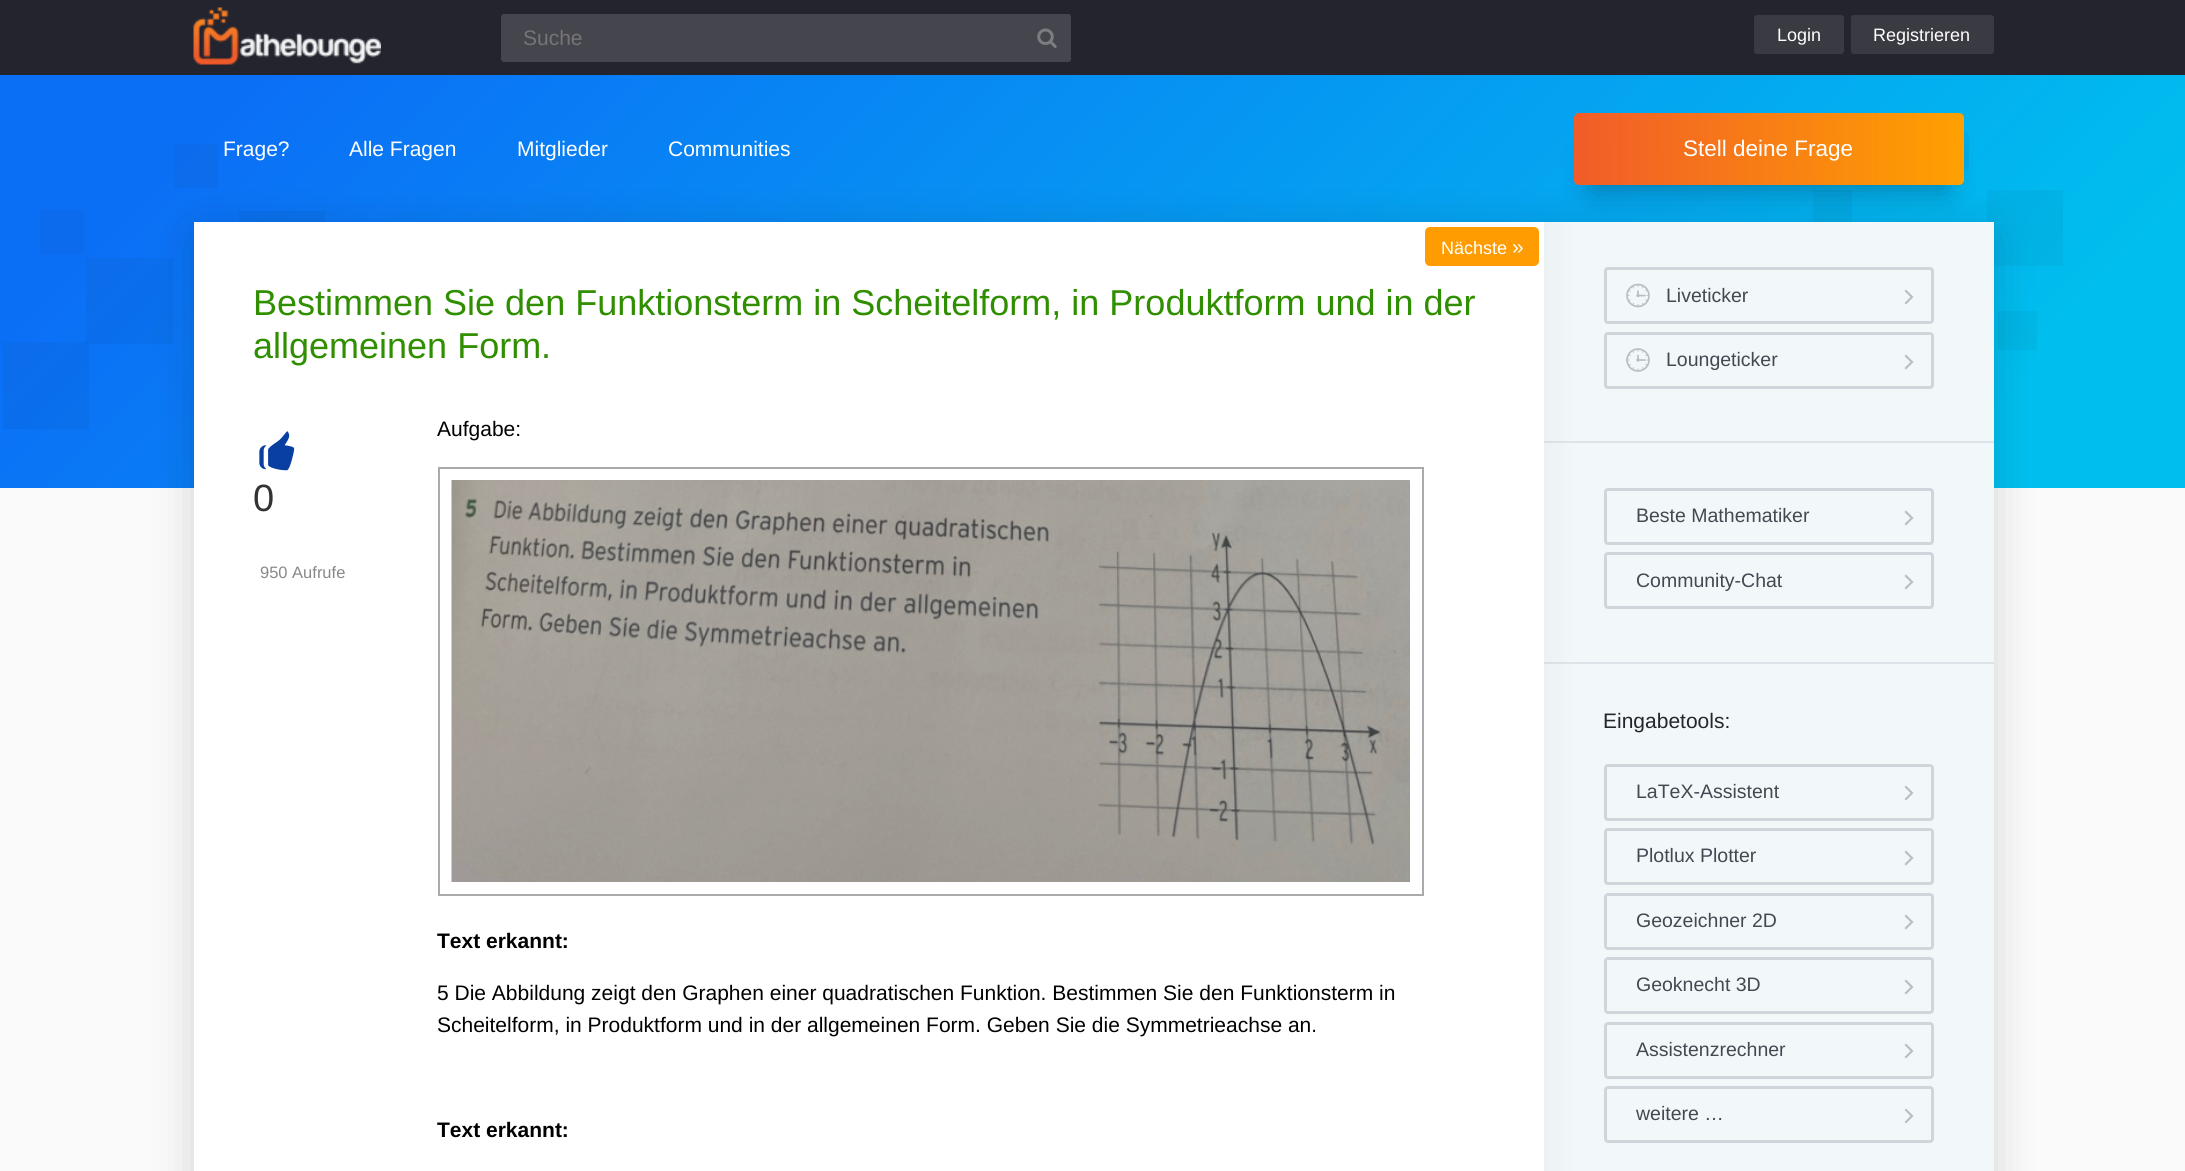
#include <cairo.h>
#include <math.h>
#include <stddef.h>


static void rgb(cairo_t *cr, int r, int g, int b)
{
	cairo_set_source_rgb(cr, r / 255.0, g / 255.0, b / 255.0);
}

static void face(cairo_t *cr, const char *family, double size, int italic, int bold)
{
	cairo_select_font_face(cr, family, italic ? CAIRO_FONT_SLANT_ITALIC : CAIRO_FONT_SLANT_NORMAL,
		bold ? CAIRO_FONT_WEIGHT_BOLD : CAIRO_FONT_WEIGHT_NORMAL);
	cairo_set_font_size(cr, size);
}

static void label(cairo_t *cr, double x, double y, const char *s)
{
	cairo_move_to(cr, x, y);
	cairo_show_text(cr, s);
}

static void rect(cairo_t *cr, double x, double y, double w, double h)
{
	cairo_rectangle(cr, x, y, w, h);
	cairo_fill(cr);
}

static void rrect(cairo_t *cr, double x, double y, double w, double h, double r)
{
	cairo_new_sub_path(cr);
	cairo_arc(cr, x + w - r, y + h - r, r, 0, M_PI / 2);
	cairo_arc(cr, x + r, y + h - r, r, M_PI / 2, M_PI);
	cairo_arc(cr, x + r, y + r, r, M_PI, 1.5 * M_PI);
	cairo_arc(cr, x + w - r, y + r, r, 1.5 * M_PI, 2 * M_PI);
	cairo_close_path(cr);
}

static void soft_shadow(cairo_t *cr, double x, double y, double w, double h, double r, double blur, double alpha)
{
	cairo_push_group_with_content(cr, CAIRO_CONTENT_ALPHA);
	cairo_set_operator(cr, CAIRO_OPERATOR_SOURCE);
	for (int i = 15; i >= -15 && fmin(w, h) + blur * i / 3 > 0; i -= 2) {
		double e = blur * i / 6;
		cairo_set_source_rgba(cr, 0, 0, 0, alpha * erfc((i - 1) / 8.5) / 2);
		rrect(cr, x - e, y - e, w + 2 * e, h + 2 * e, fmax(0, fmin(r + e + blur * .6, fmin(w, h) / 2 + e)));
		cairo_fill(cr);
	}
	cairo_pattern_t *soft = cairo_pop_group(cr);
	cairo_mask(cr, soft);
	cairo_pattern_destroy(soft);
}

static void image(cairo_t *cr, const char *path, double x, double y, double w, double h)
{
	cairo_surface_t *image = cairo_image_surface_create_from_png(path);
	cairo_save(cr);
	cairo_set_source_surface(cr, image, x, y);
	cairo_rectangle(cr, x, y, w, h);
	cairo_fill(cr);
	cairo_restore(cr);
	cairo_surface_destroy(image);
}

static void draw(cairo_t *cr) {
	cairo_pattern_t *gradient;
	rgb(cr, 250, 250, 250);
	cairo_paint(cr);
	rgb(cr, 36, 36, 46);
	rect(cr, 0, 0, 2185, 75);
	image(cr, "image0.png", 193, 7, 188, 58);
	rgb(cr, 69, 69, 77);
	rrect(cr, 501, 14, 570, 48, 3);
	cairo_fill(cr);
	face(cr, "Liberation Sans", 21, 0, 0);
	rgb(cr, 117, 117, 117);
	label(cr, 523, 45, "Suche");
	image(cr, "image1.png", 1037, 28, 20, 20);
	rgb(cr, 58, 58, 67);
	rrect(cr, 1754, 15, 90, 39, 3);
	cairo_fill(cr);
	face(cr, "Liberation Sans", 18, 0, 0);
	rgb(cr, 255, 255, 255);
	label(cr, 1777, 41, "Login");
	rgb(cr, 58, 58, 67);
	rrect(cr, 1851, 15, 143, 39, 3);
	cairo_fill(cr);
	rgb(cr, 255, 255, 255);
	label(cr, 1873, 41, "Registrieren");
	gradient = cairo_pattern_create_linear(443, -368, 1742, 931);
	cairo_pattern_add_color_stop_rgba(gradient, 0.1, 0.043, 0.435, 0.965, 1);
	cairo_pattern_add_color_stop_rgba(gradient, 0.9, 0, 0.749, 0.933, 1);
	cairo_set_source(cr, gradient);
	cairo_pattern_destroy(gradient);
	rect(cr, 0, 75, 2185, 413);
	cairo_set_source_rgba(cr, 0, 0, 0, 0.04);
	rect(cr, 239, 211, 86, 11);
	rect(cr, 86, 258, 87, 86);
	rect(cr, 3, 342, 86, 87);
	rect(cr, 174, 144, 44, 44);
	rgb(cr, 11, 107, 236);
	rrect(cr, 40, 210, 44, 44, 4);
	cairo_fill(cr);
	cairo_set_source_rgba(cr, 0, 0, 0, 0.04);
	rect(cr, 1987, 190, 76, 76);
	rect(cr, 1998, 311, 39, 39);
	rgb(cr, 2, 172, 229);
	rrect(cr, 1930, 132, 39, 38, 3);
	cairo_fill(cr);
	cairo_set_source_rgba(cr, 0, 0, 0, 0.04);
	rect(cr, 1813, 190, 39, 32);
	face(cr, "Liberation Sans", 21, 0, 0);
	rgb(cr, 255, 255, 255);
	label(cr, 223, 156, "Frage?");
	label(cr, 349, 156, "Alle Fragen");
	label(cr, 517, 156, "Mitglieder");
	label(cr, 668, 156, "Communities");
	rgb(cr, 0, 0, 0);
	soft_shadow(cr, 194, 230, 1800, 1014, 5, 22.5, 0.15);
	gradient = cairo_pattern_create_linear(1544, 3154, 1994, 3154);
	cairo_pattern_add_color_stop_rgba(gradient, 0, 0.925, 0.945, 0.953, 1);
	cairo_pattern_add_color_stop_rgba(gradient, 0.07, 0.949, 0.969, 0.98, 1);
	cairo_set_source(cr, gradient);
	cairo_pattern_destroy(gradient);
	rect(cr, 1544, 222, 450, 949);
	rgb(cr, 0, 0, 0);
	soft_shadow(cr, 1592, 153, 354, 36, 0, 15, 0.3);
	gradient = cairo_pattern_create_linear(1574, 149, 1964, 148);
	cairo_pattern_add_color_stop_rgba(gradient, 0, 0.945, 0.361, 0.161, 1);
	cairo_pattern_add_color_stop_rgba(gradient, 1, 1, 0.631, 0, 1);
	cairo_set_source(cr, gradient);
	cairo_pattern_destroy(gradient);
	rrect(cr, 1574, 113, 390, 72, 5);
	cairo_fill(cr);
	face(cr, "Liberation Sans", 22.5, 0, 0);
	rgb(cr, 255, 255, 255);
	label(cr, 1683, 156, "Stell deine Frage");
	rect(cr, 194, 222, 1350, 949);
	rgb(cr, 254, 156, 2);
	rrect(cr, 1425, 227, 114, 39, 5);
	cairo_fill(cr);
	face(cr, "Liberation Sans", 18, 0, 0);
	rgb(cr, 255, 255, 255);
	label(cr, 1441, 254, "Nächste");
	face(cr, "Liberation Sans", 21, 0, 0);
	label(cr, 1512, 254, "»");
	face(cr, "Liberation Sans", 16.5, 0, 0);
	rgb(cr, 136, 136, 136);
	label(cr, 260, 578, "950 Aufrufe");
	face(cr, "Liberation Sans", 21, 0, 0);
	rgb(cr, 0, 0, 0);
	label(cr, 437, 436, "Aufgabe:");
	cairo_rectangle(cr, 439, 468, 984, 427);
	rgb(cr, 170, 170, 170);
	cairo_stroke(cr);
	image(cr, "image2.png", 451, 480, 959, 402);
	face(cr, "Liberation Sans", 21, 0, 1);
	rgb(cr, 0, 0, 0);
	label(cr, 437, 948, "Text erkannt:");
	face(cr, "Liberation Sans", 21, 0, 0);
	label(cr, 437, 1000, "5 Die Abbildung zeigt den Graphen einer quadratischen Funktion. Bestimmen Sie den Funktionsterm in");
	label(cr, 437, 1032, "Scheitelform, in Produktform und in der allgemeinen Form. Geben Sie die Symmetrieachse an.");
	face(cr, "Liberation Sans", 21, 0, 1);
	label(cr, 437, 1137, "Text erkannt:");
	image(cr, "image3.png", 259, 431, 36, 40);
	face(cr, "Liberation Sans", 38, 0, 0);
	rgb(cr, 51, 51, 51);
	label(cr, 253, 511, "0");
	face(cr, "Liberation Sans", 36, 0, 0);
	rgb(cr, 48, 142, 1);
	label(cr, 253, 315, "Bestimmen Sie den Funktionsterm in Scheitelform, in Produktform und in der");
	label(cr, 253, 358, "allgemeinen Form.");
	cairo_set_source_rgba(cr, 0.749, 0.784, 0.812, 0.4);
	rect(cr, 1544, 441, 450, 2);
	rrect(cr, 1605.5, 268.5, 327, 54, 2.5);
	rgb(cr, 206, 214, 220);
	cairo_set_line_width(cr, 3);
	cairo_stroke(cr);
	image(cr, "image4.png", 1626, 283, 24, 25);
	face(cr, "Liberation Sans", 19.5, 0, 0);
	rgb(cr, 65, 74, 81);
	label(cr, 1666, 302, "Liveticker");
	face(cr, "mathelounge", 24, 0, 0);
	rgb(cr, 184, 190, 194);
	label(cr, 1897, 309, ">");
	rrect(cr, 1605.5, 333.5, 327, 54, 2.5);
	rgb(cr, 206, 214, 220);
	cairo_stroke(cr);
	image(cr, "image5.png", 1626, 348, 24, 24);
	face(cr, "Liberation Sans", 19.5, 0, 0);
	rgb(cr, 65, 74, 81);
	label(cr, 1666, 366, "Loungeticker");
	face(cr, "mathelounge", 24, 0, 0);
	rgb(cr, 184, 190, 194);
	label(cr, 1897, 374, ">");
	cairo_set_source_rgba(cr, 0.749, 0.784, 0.812, 0.4);
	rect(cr, 1544, 662, 450, 2);
	rrect(cr, 1605.5, 489.5, 327, 54, 2.5);
	rgb(cr, 206, 214, 220);
	cairo_stroke(cr);
	face(cr, "Liberation Sans", 19.5, 0, 0);
	rgb(cr, 65, 74, 81);
	label(cr, 1636, 522, "Beste Mathematiker");
	face(cr, "mathelounge", 24, 0, 0);
	rgb(cr, 184, 190, 194);
	label(cr, 1897, 530, ">");
	rrect(cr, 1605.5, 553.5, 327, 54, 2.5);
	rgb(cr, 206, 214, 220);
	cairo_stroke(cr);
	face(cr, "Liberation Sans", 19.5, 0, 0);
	rgb(cr, 65, 74, 81);
	label(cr, 1636, 587, "Community-Chat");
	face(cr, "mathelounge", 24, 0, 0);
	rgb(cr, 184, 190, 194);
	label(cr, 1897, 594, ">");
	face(cr, "Liberation Sans", 21, 0, 0);
	rgb(cr, 36, 37, 45);
	label(cr, 1603, 728, "Eingabetools:");
	rrect(cr, 1605.5, 765.5, 327, 54, 2.5);
	rgb(cr, 206, 214, 220);
	cairo_stroke(cr);
	face(cr, "Liberation Sans", 19.5, 0, 0);
	rgb(cr, 65, 74, 81);
	label(cr, 1636, 798, "LaTeX-Assistent");
	face(cr, "mathelounge", 24, 0, 0);
	rgb(cr, 184, 190, 194);
	label(cr, 1897, 805, ">");
	rrect(cr, 1605.5, 829.5, 327, 54, 2.5);
	rgb(cr, 206, 214, 220);
	cairo_stroke(cr);
	face(cr, "Liberation Sans", 19.5, 0, 0);
	rgb(cr, 65, 74, 81);
	label(cr, 1636, 862, "Plotlux Plotter");
	face(cr, "mathelounge", 24, 0, 0);
	rgb(cr, 184, 190, 194);
	label(cr, 1897, 870, ">");
	rrect(cr, 1605.5, 894.5, 327, 54, 2.5);
	rgb(cr, 206, 214, 220);
	cairo_stroke(cr);
	face(cr, "Liberation Sans", 19.5, 0, 0);
	rgb(cr, 65, 74, 81);
	label(cr, 1636, 927, "Geozeichner 2D");
	face(cr, "mathelounge", 24, 0, 0);
	rgb(cr, 184, 190, 194);
	label(cr, 1897, 934, ">");
	rrect(cr, 1605.5, 958.5, 327, 54, 2.5);
	rgb(cr, 206, 214, 220);
	cairo_stroke(cr);
	face(cr, "Liberation Sans", 19.5, 0, 0);
	rgb(cr, 65, 74, 81);
	label(cr, 1636, 991, "Geoknecht 3D");
	face(cr, "mathelounge", 24, 0, 0);
	rgb(cr, 184, 190, 194);
	label(cr, 1897, 999, ">");
	rrect(cr, 1605.5, 1023.5, 327, 54, 2.5);
	rgb(cr, 206, 214, 220);
	cairo_stroke(cr);
	face(cr, "Liberation Sans", 19.5, 0, 0);
	rgb(cr, 65, 74, 81);
	label(cr, 1636, 1056, "Assistenzrechner");
	face(cr, "mathelounge", 24, 0, 0);
	rgb(cr, 184, 190, 194);
	label(cr, 1897, 1063, ">");
	rrect(cr, 1605.5, 1087.5, 327, 54, 2.5);
	rgb(cr, 206, 214, 220);
	cairo_stroke(cr);
	face(cr, "Liberation Sans", 19.5, 0, 0);
	rgb(cr, 65, 74, 81);
	label(cr, 1636, 1120, "weitere …");
	face(cr, "mathelounge", 24, 0, 0);
	rgb(cr, 184, 190, 194);
	label(cr, 1897, 1128, ">");
}

int main(void) {
	cairo_surface_t *surface = cairo_image_surface_create(CAIRO_FORMAT_RGB24, 2185, 1171);
	cairo_t *cr = cairo_create(surface);
	cairo_font_options_t *options = cairo_font_options_create();
	cairo_font_options_set_hint_metrics(options, CAIRO_HINT_METRICS_OFF);
	cairo_font_options_set_hint_style(options, CAIRO_HINT_STYLE_NONE);
	cairo_set_font_options(cr, options);
	cairo_set_miter_limit(cr, 4);
	draw(cr);
	cairo_surface_write_to_png(surface, "render.png");
	cairo_font_options_destroy(options);
	cairo_destroy(cr);
	cairo_surface_destroy(surface);
	return 0;
}
